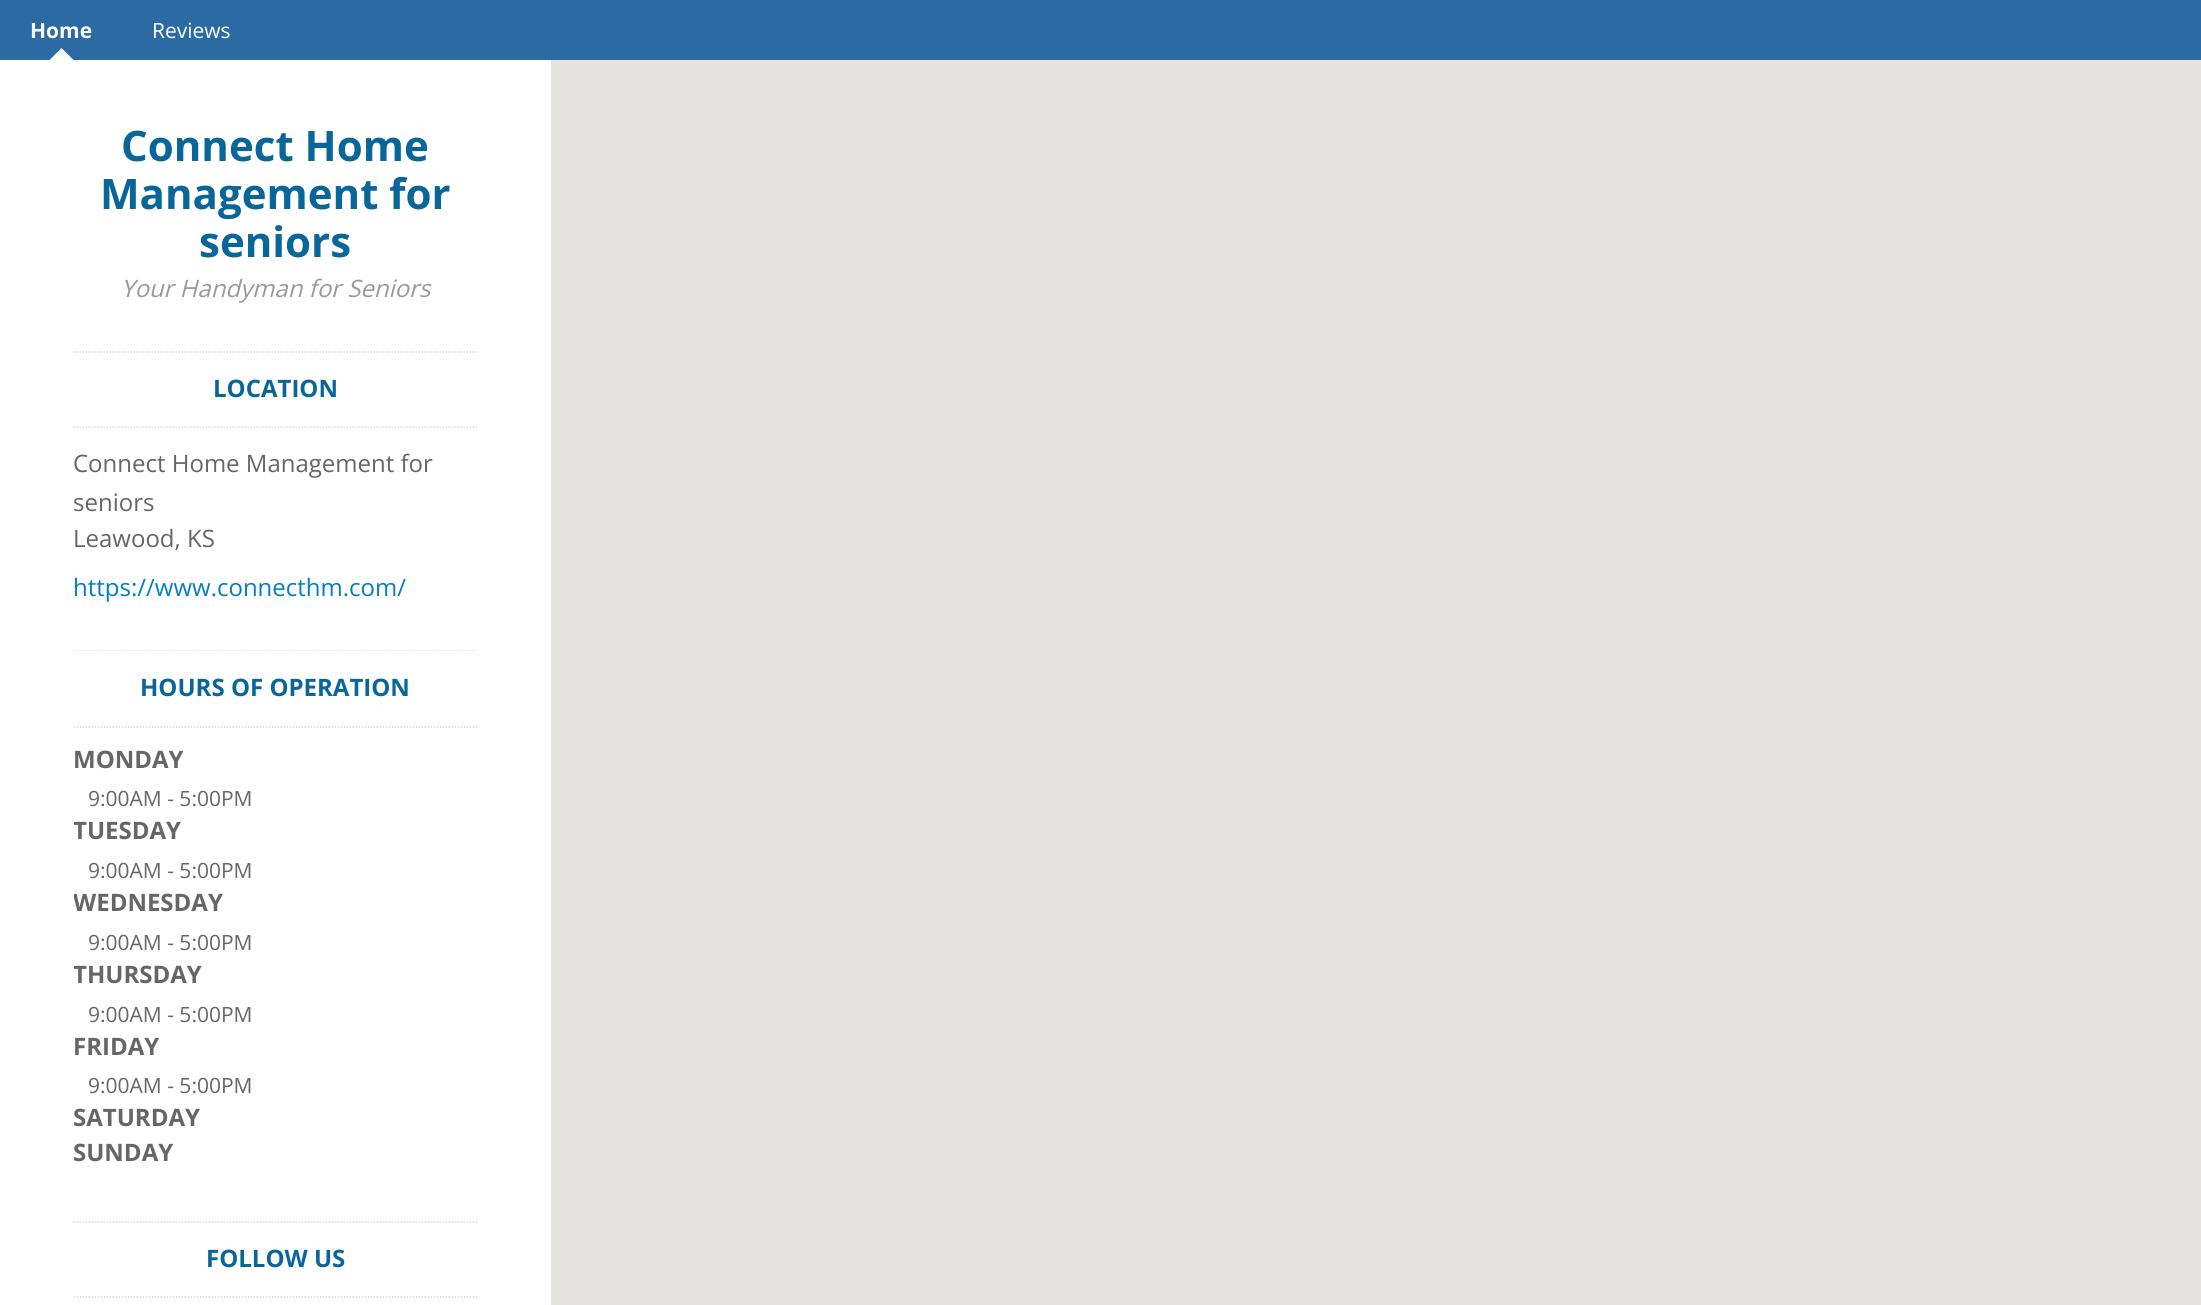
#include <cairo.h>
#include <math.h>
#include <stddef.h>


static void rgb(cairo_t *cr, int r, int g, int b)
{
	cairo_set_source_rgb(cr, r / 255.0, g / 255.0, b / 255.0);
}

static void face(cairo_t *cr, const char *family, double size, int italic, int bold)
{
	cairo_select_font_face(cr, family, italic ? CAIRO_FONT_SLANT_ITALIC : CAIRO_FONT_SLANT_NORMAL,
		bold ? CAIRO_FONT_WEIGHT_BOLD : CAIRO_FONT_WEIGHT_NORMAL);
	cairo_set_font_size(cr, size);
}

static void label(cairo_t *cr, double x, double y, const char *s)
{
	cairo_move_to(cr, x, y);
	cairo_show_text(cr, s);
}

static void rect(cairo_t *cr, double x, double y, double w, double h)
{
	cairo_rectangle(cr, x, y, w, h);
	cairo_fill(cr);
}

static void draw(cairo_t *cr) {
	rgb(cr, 255, 255, 255);
	cairo_paint(cr);
	rgb(cr, 43, 106, 163);
	rect(cr, 0, 0, 2201, 60);
	face(cr, "Open Sans", 21, 0, 1);
	rgb(cr, 255, 255, 255);
	label(cr, 30, 38, "Home");
	cairo_new_path(cr);
	cairo_move_to(cr, 73.5, 60);
	cairo_line_to(cr, 49.5, 60);
	cairo_line_to(cr, 61.5, 48);
	cairo_close_path(cr);
	cairo_fill(cr);
	face(cr, "Open Sans", 21, 0, 0);
	label(cr, 152, 38, "Reviews");
	face(cr, "Open Sans", 42, 0, 1);
	rgb(cr, 9, 102, 154);
	label(cr, 121, 161, "Connect Home");
	label(cr, 100, 209, "Management for");
	label(cr, 199, 257, "seniors");
	face(cr, "Open Sans", 24, 1, 0);
	rgb(cr, 153, 153, 153);
	label(cr, 121, 297, "Your Handyman for Seniors");
	cairo_new_path(cr);
	cairo_move_to(cr, 73.5, 352);
	cairo_line_to(cr, 478.5, 352);
	rgb(cr, 218, 218, 218);
	cairo_set_line_width(cr, 1.5);
	cairo_set_dash(cr, (double[]){1.5, 1.5}, 2, 0);
	cairo_stroke(cr);
	cairo_new_path(cr);
	cairo_move_to(cr, 73.5, 427);
	cairo_line_to(cr, 478.5, 427);
	cairo_stroke(cr);
	face(cr, "Open Sans", 24, 0, 1);
	rgb(cr, 9, 102, 154);
	label(cr, 213, 397, "LOCATION");
	face(cr, "Open Sans", 24, 0, 0);
	rgb(cr, 102, 102, 102);
	label(cr, 73, 472, "Connect Home Management for");
	label(cr, 73, 511, "seniors");
	label(cr, 73, 547, "Leawood, KS");
	rgb(cr, 5, 126, 193);
	label(cr, 73, 596, "https://www.connecthm.com/");
	cairo_save(cr);
	cairo_rectangle(cr, 74, 650, 405, 526);
	cairo_clip(cr);
	cairo_new_path(cr);
	cairo_move_to(cr, 73.5, 650);
	cairo_line_to(cr, 478.5, 650);
	rgb(cr, 218, 218, 218);
	cairo_stroke(cr);
	cairo_restore(cr);
	cairo_new_path(cr);
	cairo_move_to(cr, 73.5, 727);
	cairo_line_to(cr, 478.5, 727);
	rgb(cr, 218, 218, 218);
	cairo_stroke(cr);
	face(cr, "Open Sans", 24, 0, 1);
	rgb(cr, 9, 102, 154);
	label(cr, 140, 696, "HOURS OF OPERATION");
	rgb(cr, 102, 102, 102);
	label(cr, 73, 768, "MONDAY");
	face(cr, "Open Sans", 21, 0, 0);
	label(cr, 88, 806, "9:00AM - 5:00PM");
	cairo_save(cr);
	cairo_rectangle(cr, 74, 650, 405, 526);
	cairo_clip(cr);
	face(cr, "Open Sans", 24, 0, 1);
	label(cr, 73, 839, "TUESDAY");
	cairo_restore(cr);
	label(cr, 88, 878, "9:00AM - 5:00PM");
	cairo_save(cr);
	cairo_rectangle(cr, 74, 650, 405, 526);
	cairo_clip(cr);
	face(cr, "Open Sans", 24, 0, 1);
	label(cr, 73, 911, "WEDNESDAY");
	cairo_restore(cr);
	label(cr, 88, 950, "9:00AM - 5:00PM");
	cairo_save(cr);
	cairo_rectangle(cr, 74, 650, 405, 526);
	cairo_clip(cr);
	face(cr, "Open Sans", 24, 0, 1);
	label(cr, 73, 983, "THURSDAY");
	cairo_restore(cr);
	label(cr, 88, 1022, "9:00AM - 5:00PM");
	face(cr, "Open Sans", 24, 0, 1);
	label(cr, 73, 1055, "FRIDAY");
	face(cr, "Open Sans", 21, 0, 0);
	label(cr, 88, 1093, "9:00AM - 5:00PM");
	cairo_save(cr);
	cairo_rectangle(cr, 74, 650, 405, 526);
	cairo_clip(cr);
	face(cr, "Open Sans", 24, 0, 1);
	label(cr, 73, 1126, "SATURDAY");
	label(cr, 73, 1161, "SUNDAY");
	cairo_restore(cr);
	cairo_new_path(cr);
	cairo_move_to(cr, 73.5, 1222);
	cairo_line_to(cr, 478.5, 1222);
	rgb(cr, 218, 218, 218);
	cairo_stroke(cr);
	cairo_new_path(cr);
	cairo_move_to(cr, 73.5, 1297);
	cairo_line_to(cr, 478.5, 1297);
	cairo_stroke(cr);
	face(cr, "Open Sans", 24, 0, 1);
	rgb(cr, 9, 102, 154);
	label(cr, 206, 1267, "FOLLOW US");
	rgb(cr, 229, 227, 223);
	rect(cr, 551, 60, 1650, 1245);
}

int main(void) {
	cairo_surface_t *surface = cairo_image_surface_create(CAIRO_FORMAT_RGB24, 2201, 1305);
	cairo_t *cr = cairo_create(surface);
	cairo_font_options_t *options = cairo_font_options_create();
	cairo_font_options_set_hint_metrics(options, CAIRO_HINT_METRICS_OFF);
	cairo_font_options_set_hint_style(options, CAIRO_HINT_STYLE_NONE);
	cairo_set_font_options(cr, options);
	cairo_set_miter_limit(cr, 4);
	draw(cr);
	cairo_surface_write_to_png(surface, "render.png");
	cairo_font_options_destroy(options);
	cairo_destroy(cr);
	cairo_surface_destroy(surface);
	return 0;
}
